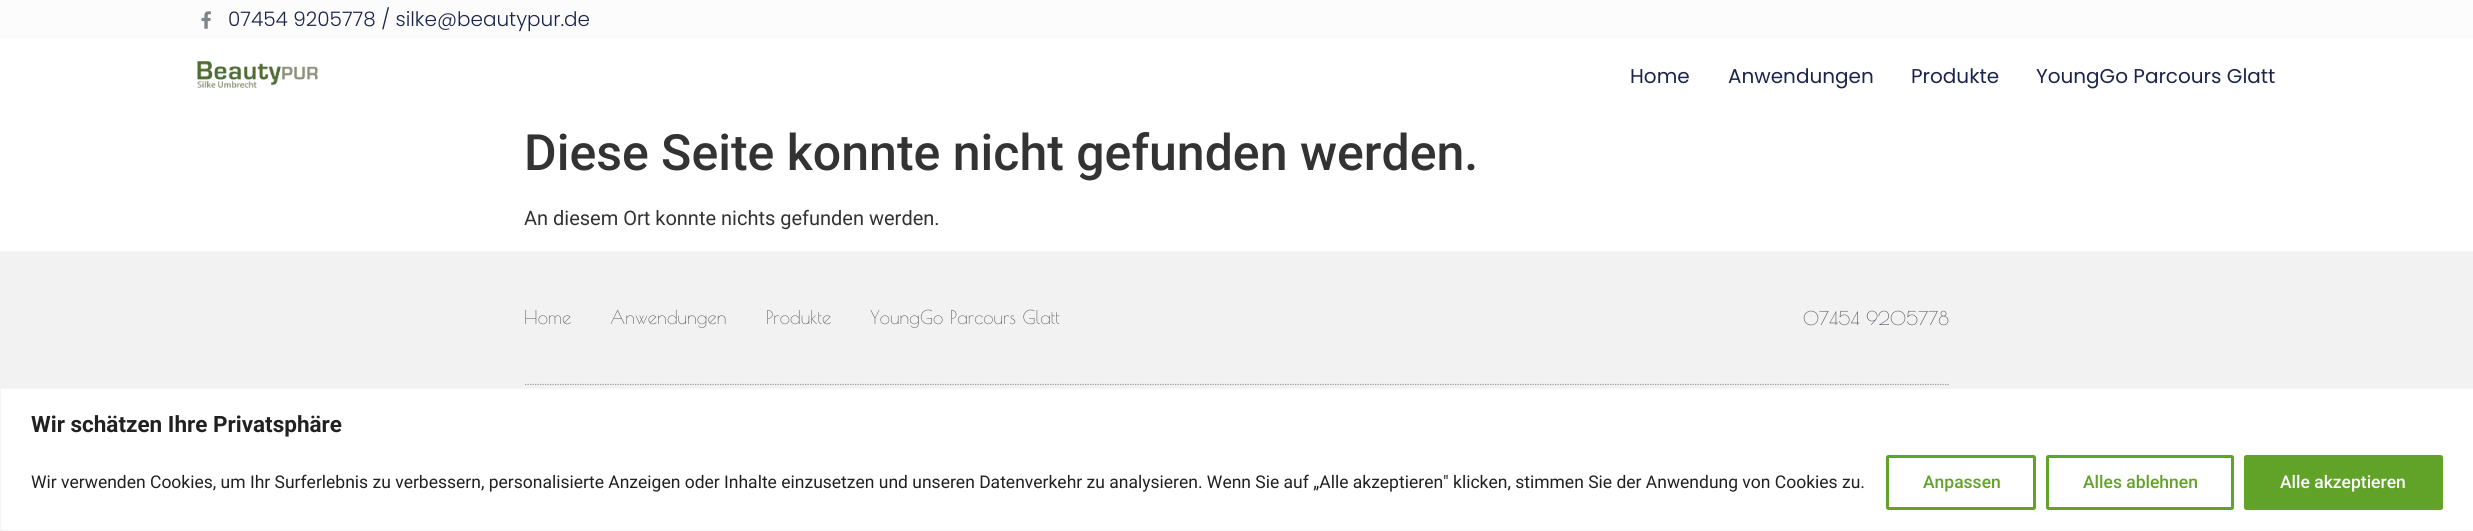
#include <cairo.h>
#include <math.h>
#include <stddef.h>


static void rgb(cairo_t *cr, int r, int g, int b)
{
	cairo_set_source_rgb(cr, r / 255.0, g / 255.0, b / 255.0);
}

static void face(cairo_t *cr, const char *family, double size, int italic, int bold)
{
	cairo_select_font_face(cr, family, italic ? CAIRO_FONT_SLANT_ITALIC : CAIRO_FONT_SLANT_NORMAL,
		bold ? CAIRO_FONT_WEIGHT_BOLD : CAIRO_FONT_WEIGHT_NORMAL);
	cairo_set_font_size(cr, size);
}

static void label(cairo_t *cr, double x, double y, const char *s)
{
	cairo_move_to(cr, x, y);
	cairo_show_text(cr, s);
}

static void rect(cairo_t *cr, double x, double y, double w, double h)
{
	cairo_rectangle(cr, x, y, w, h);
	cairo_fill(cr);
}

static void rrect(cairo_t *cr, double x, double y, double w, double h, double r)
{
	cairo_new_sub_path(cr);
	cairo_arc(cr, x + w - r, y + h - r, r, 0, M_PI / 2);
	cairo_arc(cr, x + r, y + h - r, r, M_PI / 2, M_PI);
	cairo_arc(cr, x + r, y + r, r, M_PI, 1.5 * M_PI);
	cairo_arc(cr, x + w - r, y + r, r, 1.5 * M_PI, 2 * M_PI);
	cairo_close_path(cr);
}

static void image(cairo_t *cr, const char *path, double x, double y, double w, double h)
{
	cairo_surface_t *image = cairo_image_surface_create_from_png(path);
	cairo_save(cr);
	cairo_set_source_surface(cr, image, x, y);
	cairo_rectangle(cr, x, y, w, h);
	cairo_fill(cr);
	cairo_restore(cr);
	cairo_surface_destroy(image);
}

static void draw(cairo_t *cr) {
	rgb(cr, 255, 255, 255);
	cairo_paint(cr);
	rgb(cr, 252, 252, 252);
	rect(cr, 0, 0, 2473, 39);
	image(cr, "image0.png", 201, 11, 10, 18);
	face(cr, "Poppins Light", 20, 0, 0);
	rgb(cr, 28, 36, 75);
	label(cr, 228, 26, "07454 9205778 / silke@beautypur.de");
	image(cr, "image1.png", 197, 61, 121, 27);
	face(cr, "Poppins", 20, 0, 0);
	label(cr, 1630, 83, "Home");
	label(cr, 1728, 83, "Anwendungen");
	label(cr, 1911, 83, "Produkte");
	label(cr, 2036, 83, "YoungGo Parcours Glatt");
	face(cr, "Roboto Medium", 50, 0, 0);
	rgb(cr, 51, 51, 51);
	label(cr, 524, 170, "Diese Seite konnte nicht gefunden werden.");
	face(cr, "Roboto", 20, 0, 0);
	label(cr, 524, 225, "An diesem Ort konnte nichts gefunden werden.");
	rgb(cr, 242, 242, 242);
	rect(cr, 0, 251, 2473, 137);
	cairo_new_path(cr);
	cairo_move_to(cr, 525, 384.5);
	cairo_line_to(cr, 1950, 384.5);
	rgb(cr, 155, 155, 155);
	cairo_set_line_width(cr, 1.2);
	cairo_set_dash(cr, (double[]){1.25, 1.25}, 2, 0);
	cairo_stroke(cr);
	face(cr, "Poiret One", 18.75, 0, 0);
	rgb(cr, 102, 102, 102);
	label(cr, 524, 324, "Home");
	label(cr, 610, 324, "Anwendungen");
	label(cr, 766, 324, "Produkte");
	label(cr, 870, 324, "YoungGo Parcours Glatt");
	rgb(cr, 84, 89, 95);
	label(cr, 1803, 325, "07454 9205778");
	cairo_rectangle(cr, 0.5, 388.5, 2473, 142);
	rgb(cr, 244, 244, 244);
	cairo_set_line_width(cr, 1);
	cairo_set_dash(cr, NULL, 0, 0);
	cairo_stroke(cr);
	face(cr, "Roboto", 22.5, 0, 1);
	rgb(cr, 33, 33, 33);
	label(cr, 31, 432, "Wir schätzen Ihre Privatsphäre");
	face(cr, "Roboto", 17.5, 0, 0);
	label(cr, 31, 488, "Wir verwenden Cookies, um Ihr Surferlebnis zu verbessern, personalisierte Anzeigen oder Inhalte einzusetzen und unseren Datenverkehr zu analysieren. Wenn Sie auf „Alle akzeptieren\" klicken, stimmen Sie der Anwendung von Cookies zu.");
	rrect(cr, 1887.5, 456.5, 147, 52, 1);
	rgb(cr, 97, 162, 41);
	cairo_set_line_width(cr, 3);
	cairo_stroke(cr);
	face(cr, "Roboto Medium", 17.5, 0, 0);
	label(cr, 1923, 488, "Anpassen");
	rrect(cr, 2047.5, 456.5, 185, 52, 1);
	cairo_stroke(cr);
	label(cr, 2083, 488, "Alles ablehnen");
	rrect(cr, 2245.5, 456.5, 196, 52, 1);
	cairo_fill_preserve(cr);
	cairo_stroke(cr);
	rgb(cr, 255, 255, 255);
	label(cr, 2280, 488, "Alle akzeptieren");
}

int main(void) {
	cairo_surface_t *surface = cairo_image_surface_create(CAIRO_FORMAT_RGB24, 2473, 531);
	cairo_t *cr = cairo_create(surface);
	cairo_font_options_t *options = cairo_font_options_create();
	cairo_font_options_set_hint_metrics(options, CAIRO_HINT_METRICS_OFF);
	cairo_font_options_set_hint_style(options, CAIRO_HINT_STYLE_NONE);
	cairo_set_font_options(cr, options);
	cairo_set_miter_limit(cr, 4);
	draw(cr);
	cairo_surface_write_to_png(surface, "render.png");
	cairo_font_options_destroy(options);
	cairo_destroy(cr);
	cairo_surface_destroy(surface);
	return 0;
}
